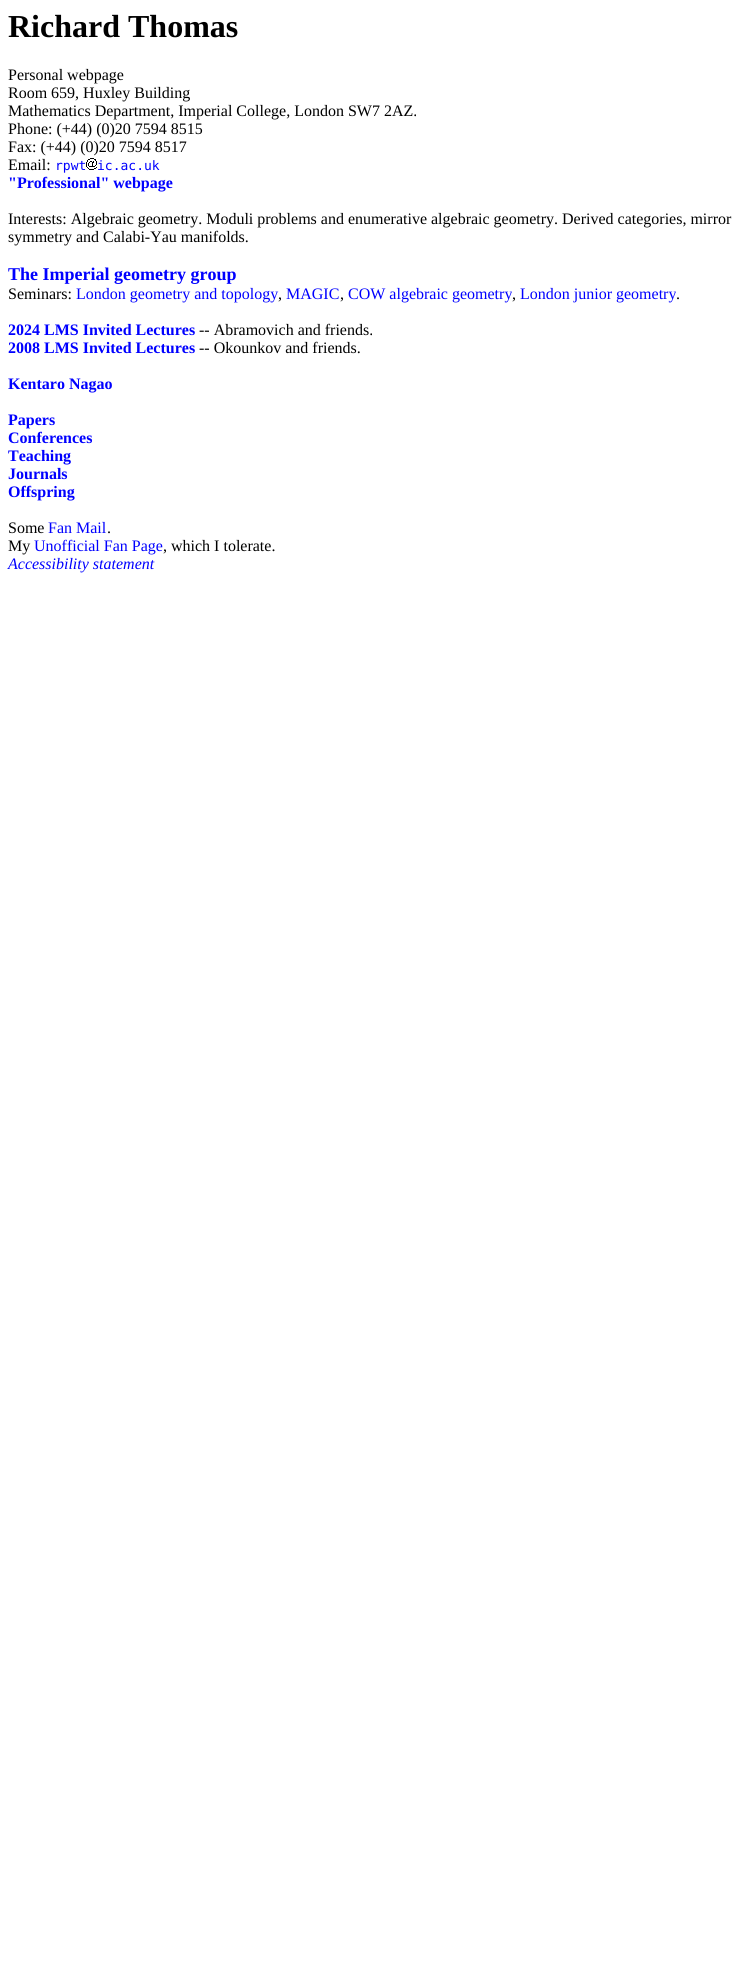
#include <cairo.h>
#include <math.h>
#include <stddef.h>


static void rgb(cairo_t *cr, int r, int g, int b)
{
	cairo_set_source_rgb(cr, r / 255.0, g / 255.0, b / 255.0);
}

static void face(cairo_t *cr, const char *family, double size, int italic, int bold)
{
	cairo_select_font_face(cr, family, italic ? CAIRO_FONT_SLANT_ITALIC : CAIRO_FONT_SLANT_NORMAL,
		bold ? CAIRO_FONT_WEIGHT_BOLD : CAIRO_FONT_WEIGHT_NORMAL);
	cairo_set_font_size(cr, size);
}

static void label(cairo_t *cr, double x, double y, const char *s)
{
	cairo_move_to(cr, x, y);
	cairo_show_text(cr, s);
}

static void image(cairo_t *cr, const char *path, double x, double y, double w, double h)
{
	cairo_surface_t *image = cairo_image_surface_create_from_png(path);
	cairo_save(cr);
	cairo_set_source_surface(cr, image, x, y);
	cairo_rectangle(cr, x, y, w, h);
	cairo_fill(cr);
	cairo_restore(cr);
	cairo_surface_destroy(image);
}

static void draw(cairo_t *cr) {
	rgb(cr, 255, 255, 255);
	cairo_paint(cr);
	face(cr, "Liberation Serif", 32, 0, 1);
	rgb(cr, 0, 0, 0);
	label(cr, 8, 37, "Richard Thomas");
	face(cr, "Liberation Serif", 16, 0, 0);
	label(cr, 8, 80, "Personal webpage");
	label(cr, 8, 98, "Room 659, Huxley Building");
	label(cr, 8, 116, "Mathematics Department, Imperial College, London SW7 2AZ.");
	label(cr, 8, 134, "Phone: (+44) (0)20 7594 8515");
	label(cr, 8, 152, "Fax: (+44) (0)20 7594 8517");
	label(cr, 8, 170, "Email:");
	face(cr, "DejaVu Sans Mono", 13, 0, 0);
	rgb(cr, 0, 0, 255);
	label(cr, 55, 170, "rpwt");
	image(cr, "image0.png", 86, 158, 11, 12);
	label(cr, 97, 170, "ic.ac.uk");
	face(cr, "Liberation Serif", 16, 0, 1);
	label(cr, 8, 188, "\"Professional\" webpage");
	face(cr, "Liberation Serif", 16, 0, 0);
	rgb(cr, 0, 0, 0);
	label(cr, 8, 224, "Interests: Algebraic geometry. Moduli problems and enumerative algebraic geometry. Derived categories, mirror");
	label(cr, 8, 242, "symmetry and Calabi-Yau manifolds.");
	face(cr, "Liberation Serif", 18, 0, 1);
	rgb(cr, 0, 0, 255);
	label(cr, 8, 280, "The Imperial geometry group");
	face(cr, "Liberation Serif", 16, 0, 0);
	rgb(cr, 0, 0, 0);
	label(cr, 8, 299, "Seminars:");
	rgb(cr, 0, 0, 255);
	label(cr, 76, 299, "London geometry and topology");
	rgb(cr, 0, 0, 0);
	label(cr, 278, 299, ",");
	rgb(cr, 0, 0, 255);
	label(cr, 286, 299, "MAGIC");
	rgb(cr, 0, 0, 0);
	label(cr, 340, 299, ",");
	rgb(cr, 0, 0, 255);
	label(cr, 348, 299, "COW algebraic geometry");
	rgb(cr, 0, 0, 0);
	label(cr, 512, 299, ",");
	rgb(cr, 0, 0, 255);
	label(cr, 520, 299, "London junior geometry");
	rgb(cr, 0, 0, 0);
	label(cr, 676, 299, ".");
	face(cr, "Liberation Serif", 16, 0, 1);
	rgb(cr, 0, 0, 255);
	label(cr, 8, 335, "2024 LMS Invited Lectures");
	face(cr, "Liberation Serif", 16, 0, 0);
	rgb(cr, 0, 0, 0);
	label(cr, 199, 335, "-- Abramovich and friends.");
	face(cr, "Liberation Serif", 16, 0, 1);
	rgb(cr, 0, 0, 255);
	label(cr, 8, 353, "2008 LMS Invited Lectures");
	face(cr, "Liberation Serif", 16, 0, 0);
	rgb(cr, 0, 0, 0);
	label(cr, 199, 353, "-- Okounkov and friends.");
	face(cr, "Liberation Serif", 16, 0, 1);
	rgb(cr, 0, 0, 255);
	label(cr, 8, 389, "Kentaro Nagao");
	label(cr, 8, 425, "Papers");
	label(cr, 8, 443, "Conferences");
	label(cr, 8, 461, "Teaching");
	label(cr, 8, 479, "Journals");
	label(cr, 8, 497, "Offspring");
	face(cr, "Liberation Serif", 16, 0, 0);
	rgb(cr, 0, 0, 0);
	label(cr, 8, 533, "Some");
	rgb(cr, 0, 0, 255);
	label(cr, 48, 533, "Fan Mail");
	rgb(cr, 0, 0, 0);
	label(cr, 107, 533, ".");
	label(cr, 8, 551, "My");
	rgb(cr, 0, 0, 255);
	label(cr, 34, 551, "Unofficial Fan Page");
	rgb(cr, 0, 0, 0);
	label(cr, 163, 551, ", which I tolerate.");
	face(cr, "Liberation Serif", 16, 1, 0);
	rgb(cr, 0, 0, 255);
	label(cr, 8, 569, "Accessibility statement");
}

int main(void) {
	cairo_surface_t *surface = cairo_image_surface_create(CAIRO_FORMAT_RGB24, 751, 1977);
	cairo_t *cr = cairo_create(surface);
	cairo_font_options_t *options = cairo_font_options_create();
	cairo_font_options_set_hint_metrics(options, CAIRO_HINT_METRICS_OFF);
	cairo_font_options_set_hint_style(options, CAIRO_HINT_STYLE_NONE);
	cairo_set_font_options(cr, options);
	cairo_set_miter_limit(cr, 4);
	draw(cr);
	cairo_surface_write_to_png(surface, "render.png");
	cairo_font_options_destroy(options);
	cairo_destroy(cr);
	cairo_surface_destroy(surface);
	return 0;
}
